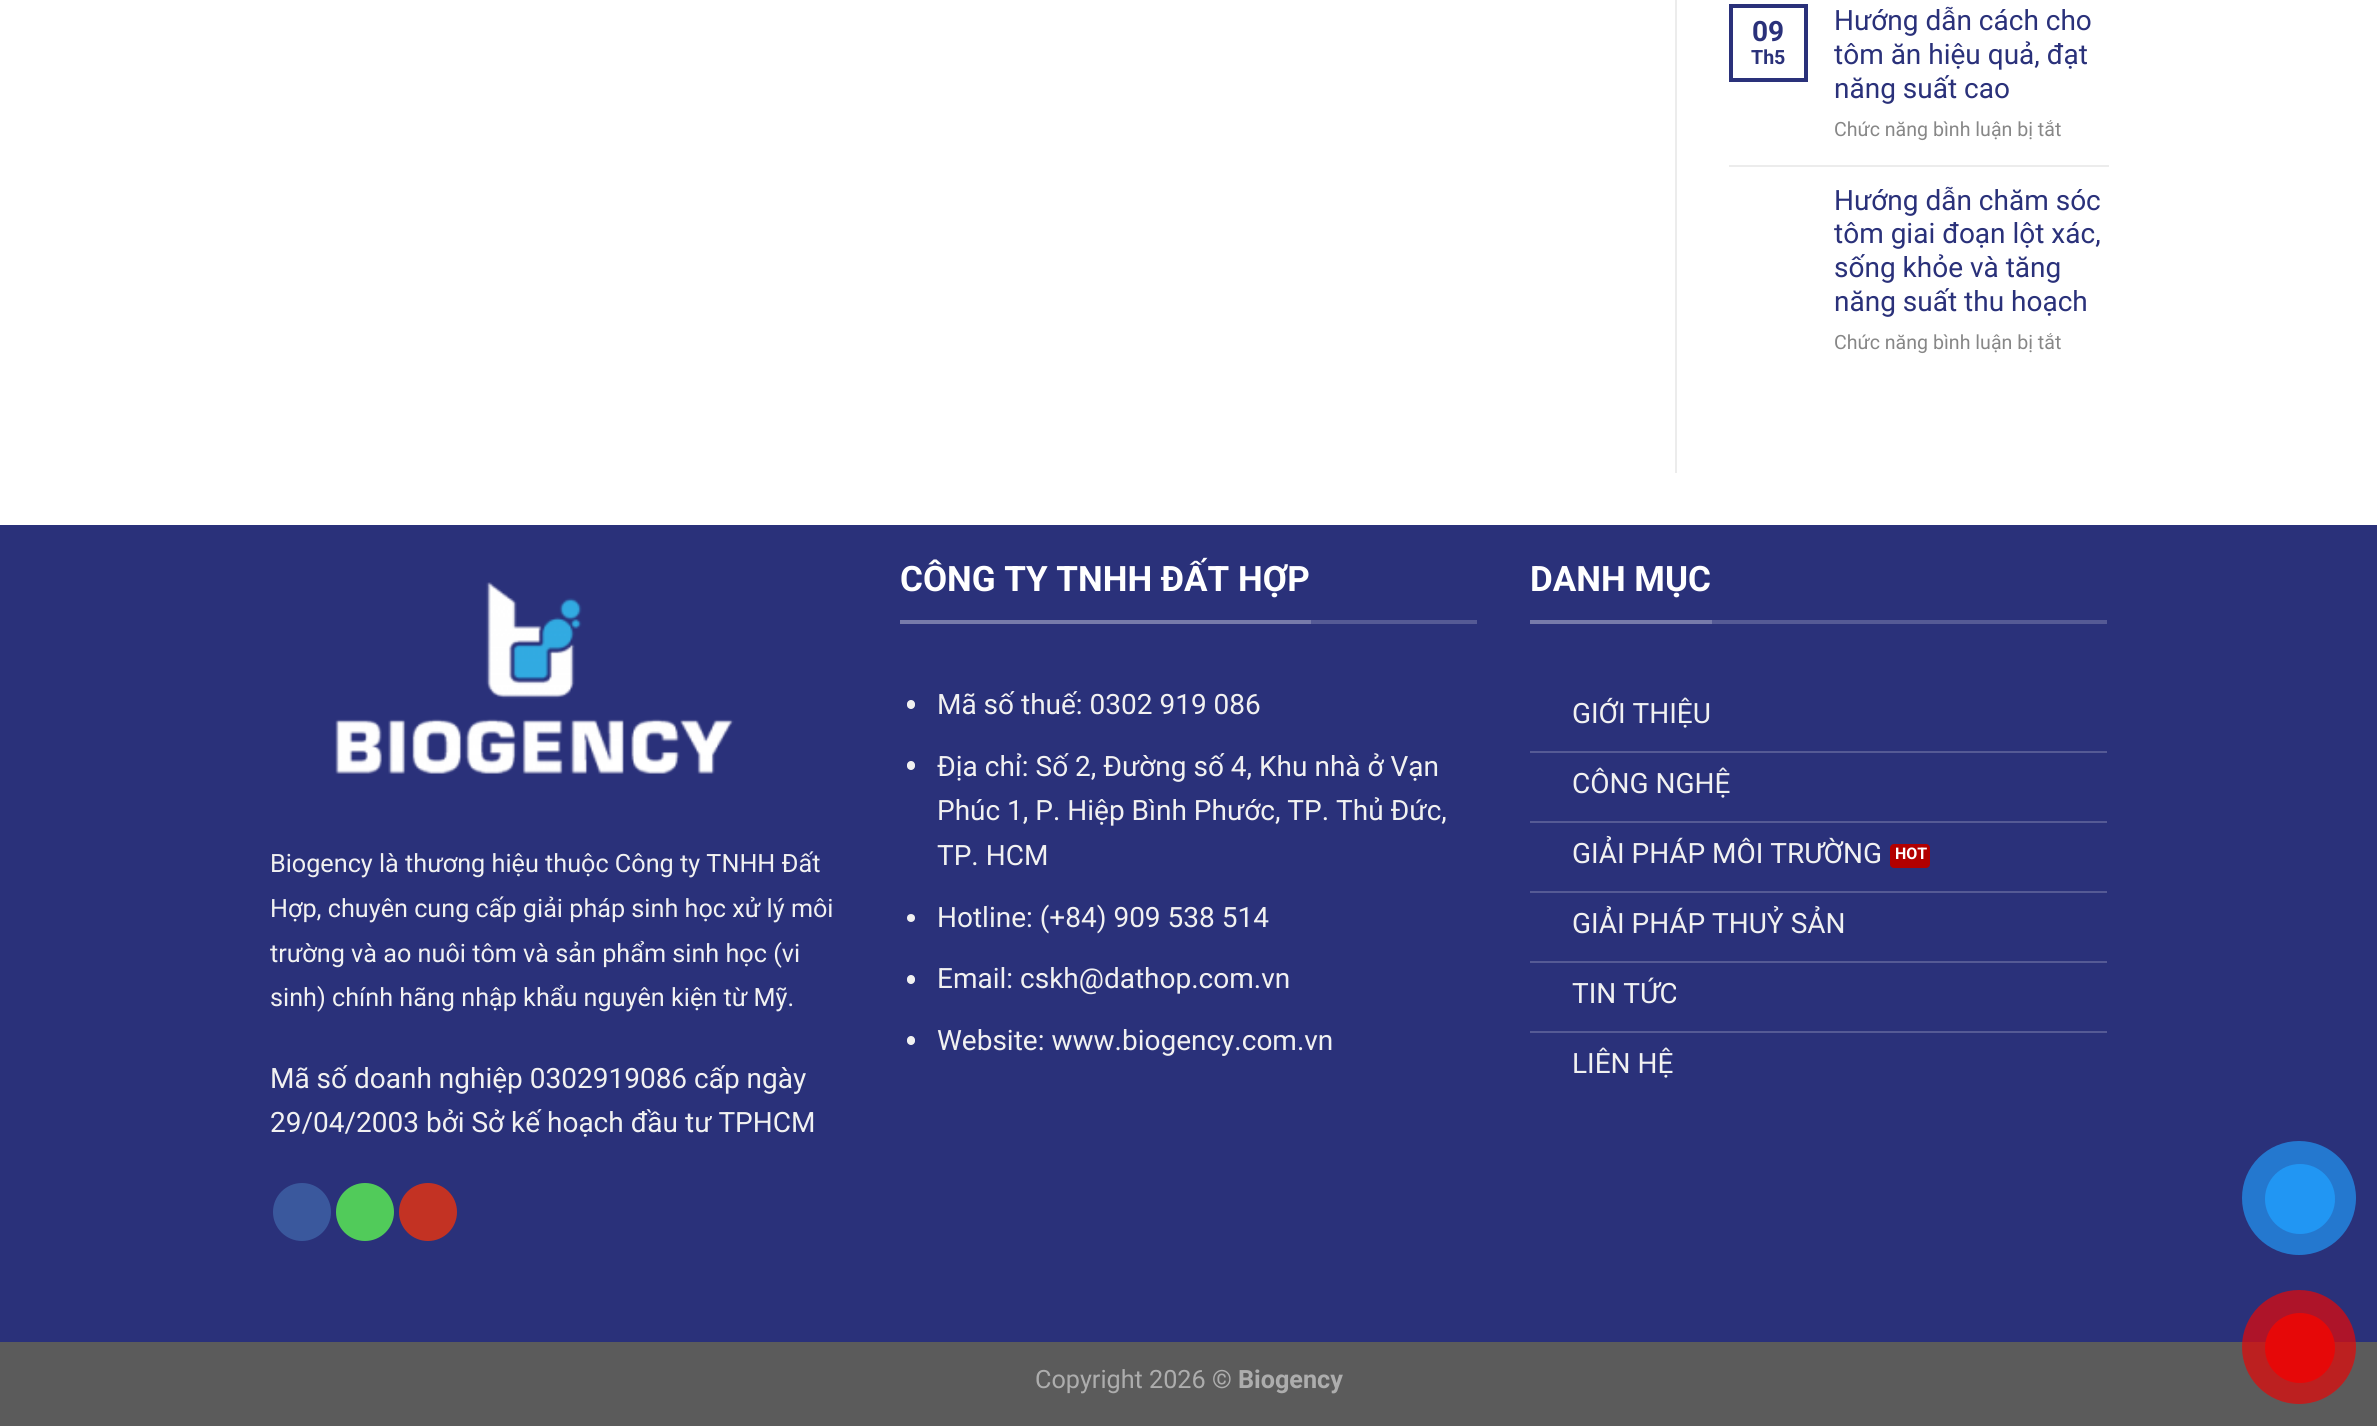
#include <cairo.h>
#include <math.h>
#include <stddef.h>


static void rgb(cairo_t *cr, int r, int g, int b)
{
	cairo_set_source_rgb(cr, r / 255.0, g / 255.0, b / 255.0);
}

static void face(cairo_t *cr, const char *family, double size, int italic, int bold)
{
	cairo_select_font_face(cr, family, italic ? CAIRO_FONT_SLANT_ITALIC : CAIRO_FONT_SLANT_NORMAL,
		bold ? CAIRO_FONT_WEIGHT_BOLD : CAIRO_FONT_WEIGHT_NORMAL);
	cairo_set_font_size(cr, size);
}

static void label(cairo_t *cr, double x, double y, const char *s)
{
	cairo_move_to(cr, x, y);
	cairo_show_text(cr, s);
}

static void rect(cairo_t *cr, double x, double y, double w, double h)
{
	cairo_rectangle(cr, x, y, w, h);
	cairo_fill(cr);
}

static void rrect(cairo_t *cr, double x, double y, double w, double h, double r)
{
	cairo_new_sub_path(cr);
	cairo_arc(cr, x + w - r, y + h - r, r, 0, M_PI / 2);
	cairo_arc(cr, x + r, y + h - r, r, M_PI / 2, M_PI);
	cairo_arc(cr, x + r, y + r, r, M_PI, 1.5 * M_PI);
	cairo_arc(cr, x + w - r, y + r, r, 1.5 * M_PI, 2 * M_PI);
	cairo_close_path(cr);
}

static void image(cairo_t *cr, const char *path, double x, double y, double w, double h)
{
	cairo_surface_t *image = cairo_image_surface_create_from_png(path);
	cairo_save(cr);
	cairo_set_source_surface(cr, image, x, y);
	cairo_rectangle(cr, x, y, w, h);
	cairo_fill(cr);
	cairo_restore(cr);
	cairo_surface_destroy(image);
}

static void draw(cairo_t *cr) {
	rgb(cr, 255, 255, 255);
	cairo_paint(cr);
	rgb(cr, 236, 236, 236);
	rect(cr, 1675, 0, 2, 473);
	cairo_rectangle(cr, 1731, 6, 75, 74);
	rgb(cr, 42, 49, 122);
	cairo_set_line_width(cr, 4);
	cairo_stroke(cr);
	face(cr, "Roboto", 28, 0, 1);
	label(cr, 1752, 41, "09");
	face(cr, "Roboto", 19.6, 0, 1);
	label(cr, 1751, 64, "Th5");
	face(cr, "Roboto", 28, 0, 0);
	label(cr, 1834, 30, "Hướng dẫn cách cho");
	label(cr, 1834, 64, "tôm ăn hiệu quả, đạt");
	label(cr, 1834, 98, "năng suất cao");
	face(cr, "Roboto", 19.6, 0, 0);
	rgb(cr, 135, 135, 135);
	label(cr, 1834, 136, "Chức năng bình luận bị tắt");
	rgb(cr, 236, 236, 236);
	rect(cr, 1729, 165, 380, 2);
	face(cr, "Roboto", 28, 0, 0);
	rgb(cr, 42, 49, 122);
	label(cr, 1834, 210, "Hướng dẫn chăm sóc");
	label(cr, 1834, 243, "tôm giai đoạn lột xác,");
	label(cr, 1834, 277, "sống khỏe và tăng");
	label(cr, 1834, 311, "năng suất thu hoạch");
	face(cr, "Roboto", 19.6, 0, 0);
	rgb(cr, 135, 135, 135);
	label(cr, 1834, 349, "Chức năng bình luận bị tắt");
	rgb(cr, 42, 49, 122);
	rect(cr, 0, 525, 2377, 817);
	image(cr, "image0.png", 335, 582, 399, 192);
	face(cr, "Roboto", 25.2, 0, 0);
	rgb(cr, 241, 241, 241);
	label(cr, 270, 872, "Biogency là thương hiệu thuộc Công ty TNHH Đất");
	label(cr, 270, 917, "Hợp, chuyên cung cấp giải pháp sinh học xử lý môi");
	label(cr, 270, 962, "trường và ao nuôi tôm và sản phẩm sinh học (vi");
	label(cr, 270, 1006, "sinh) chính hãng nhập khẩu nguyên kiện từ Mỹ.");
	face(cr, "Roboto", 28, 0, 0);
	label(cr, 270, 1088, "Mã số doanh nghiệp 0302919086 cấp ngày");
	label(cr, 270, 1132, "29/04/2003 bởi Sở kế hoạch đầu tư TPHCM");
	rgb(cr, 58, 88, 157);
	cairo_new_path(cr);
	cairo_arc(cr, 302, 1212, 28, 0, 2 * M_PI);
	cairo_fill_preserve(cr);
	cairo_set_line_width(cr, 2);
	cairo_stroke(cr);
	rgb(cr, 81, 203, 90);
	cairo_arc(cr, 365, 1212, 28, 0, 2 * M_PI);
	cairo_fill_preserve(cr);
	cairo_stroke(cr);
	rgb(cr, 195, 50, 35);
	cairo_arc(cr, 428, 1212, 28, 0, 2 * M_PI);
	cairo_fill_preserve(cr);
	cairo_stroke(cr);
	rgb(cr, 85, 90, 149);
	rect(cr, 1311, 620, 166, 4);
	rgb(cr, 119, 123, 170);
	rect(cr, 900, 620, 411, 4);
	face(cr, "Roboto", 35, 0, 1);
	rgb(cr, 255, 255, 255);
	label(cr, 900, 591, "CÔNG TY TNHH ĐẤT HỢP");
	rgb(cr, 241, 241, 241);
	rrect(cr, 907, 700, 8, 9, 4);
	cairo_fill(cr);
	face(cr, "Roboto", 28, 0, 0);
	label(cr, 937, 714, "Mã số thuế: 0302 919 086");
	rrect(cr, 907, 761, 8, 9, 4);
	cairo_fill(cr);
	label(cr, 937, 776, "Địa chỉ: Số 2, Đường số 4, Khu nhà ở Vạn");
	label(cr, 937, 820, "Phúc 1, P. Hiệp Bình Phước, TP. Thủ Đức,");
	label(cr, 937, 865, "TP. HCM");
	cairo_new_path(cr);
	cairo_arc(cr, 911, 918, 4, 0, 2 * M_PI);
	cairo_fill(cr);
	label(cr, 937, 927, "Hotline: (+84) 909 538 514");
	rrect(cr, 907, 975, 8, 9, 4);
	cairo_fill(cr);
	label(cr, 937, 988, "Email: cskh@dathop.com.vn");
	rrect(cr, 907, 1036, 8, 9, 4);
	cairo_fill(cr);
	label(cr, 937, 1050, "Website: www.biogency.com.vn");
	rgb(cr, 85, 90, 149);
	rect(cr, 1712, 620, 395, 4);
	rgb(cr, 119, 123, 170);
	rect(cr, 1530, 620, 182, 4);
	face(cr, "Roboto", 35, 0, 1);
	rgb(cr, 255, 255, 255);
	label(cr, 1530, 591, "DANH MỤC");
	rgb(cr, 85, 90, 149);
	rect(cr, 1530, 751, 577, 2);
	face(cr, "Roboto", 28, 0, 0);
	rgb(cr, 241, 241, 241);
	label(cr, 1572, 723, "GIỚI THIỆU");
	rgb(cr, 85, 90, 149);
	rect(cr, 1530, 821, 577, 2);
	rgb(cr, 241, 241, 241);
	label(cr, 1572, 793, "CÔNG NGHỆ");
	rgb(cr, 85, 90, 149);
	rect(cr, 1530, 891, 577, 2);
	rgb(cr, 241, 241, 241);
	label(cr, 1572, 863, "GIẢI PHÁP MÔI TRƯỜNG");
	rgb(cr, 178, 0, 0);
	rrect(cr, 1890, 844, 40, 24, 4);
	cairo_fill(cr);
	face(cr, "Roboto", 16, 0, 1);
	rgb(cr, 255, 255, 255);
	label(cr, 1895, 859, "HOT");
	rgb(cr, 85, 90, 149);
	rect(cr, 1530, 961, 577, 2);
	face(cr, "Roboto", 28, 0, 0);
	rgb(cr, 241, 241, 241);
	label(cr, 1572, 933, "GIẢI PHÁP THUỶ SẢN");
	rgb(cr, 85, 90, 149);
	rect(cr, 1530, 1031, 577, 2);
	rgb(cr, 241, 241, 241);
	label(cr, 1572, 1003, "TIN TỨC");
	label(cr, 1572, 1073, "LIÊN HỆ");
	rgb(cr, 91, 91, 91);
	rect(cr, 0, 1342, 2377, 84);
	face(cr, "Roboto", 25.2, 0, 0);
	rgb(cr, 173, 173, 173);
	label(cr, 1035, 1388, "Copyright 2026 ©");
	face(cr, "Roboto", 25.2, 0, 1);
	label(cr, 1238, 1388, "Biogency");
	rgb(cr, 36, 120, 207);
	cairo_new_path(cr);
	cairo_arc(cr, 2299, 1198, 57, 0, 2 * M_PI);
	cairo_fill(cr);
	rgb(cr, 33, 150, 243);
	cairo_arc(cr, 2300, 1199, 35, 0, 2 * M_PI);
	cairo_fill(cr);
	cairo_set_source_rgba(cr, 0.902, 0.031, 0.031, 0.7);
	cairo_arc(cr, 2299, 1347, 57, 0, 2 * M_PI);
	cairo_fill(cr);
	rgb(cr, 230, 8, 8);
	cairo_arc(cr, 2300, 1348, 35, 0, 2 * M_PI);
	cairo_fill(cr);
}

int main(void) {
	cairo_surface_t *surface = cairo_image_surface_create(CAIRO_FORMAT_RGB24, 2377, 1426);
	cairo_t *cr = cairo_create(surface);
	cairo_font_options_t *options = cairo_font_options_create();
	cairo_font_options_set_hint_metrics(options, CAIRO_HINT_METRICS_OFF);
	cairo_font_options_set_hint_style(options, CAIRO_HINT_STYLE_NONE);
	cairo_set_font_options(cr, options);
	cairo_set_miter_limit(cr, 4);
	draw(cr);
	cairo_surface_write_to_png(surface, "render.png");
	cairo_font_options_destroy(options);
	cairo_destroy(cr);
	cairo_surface_destroy(surface);
	return 0;
}
